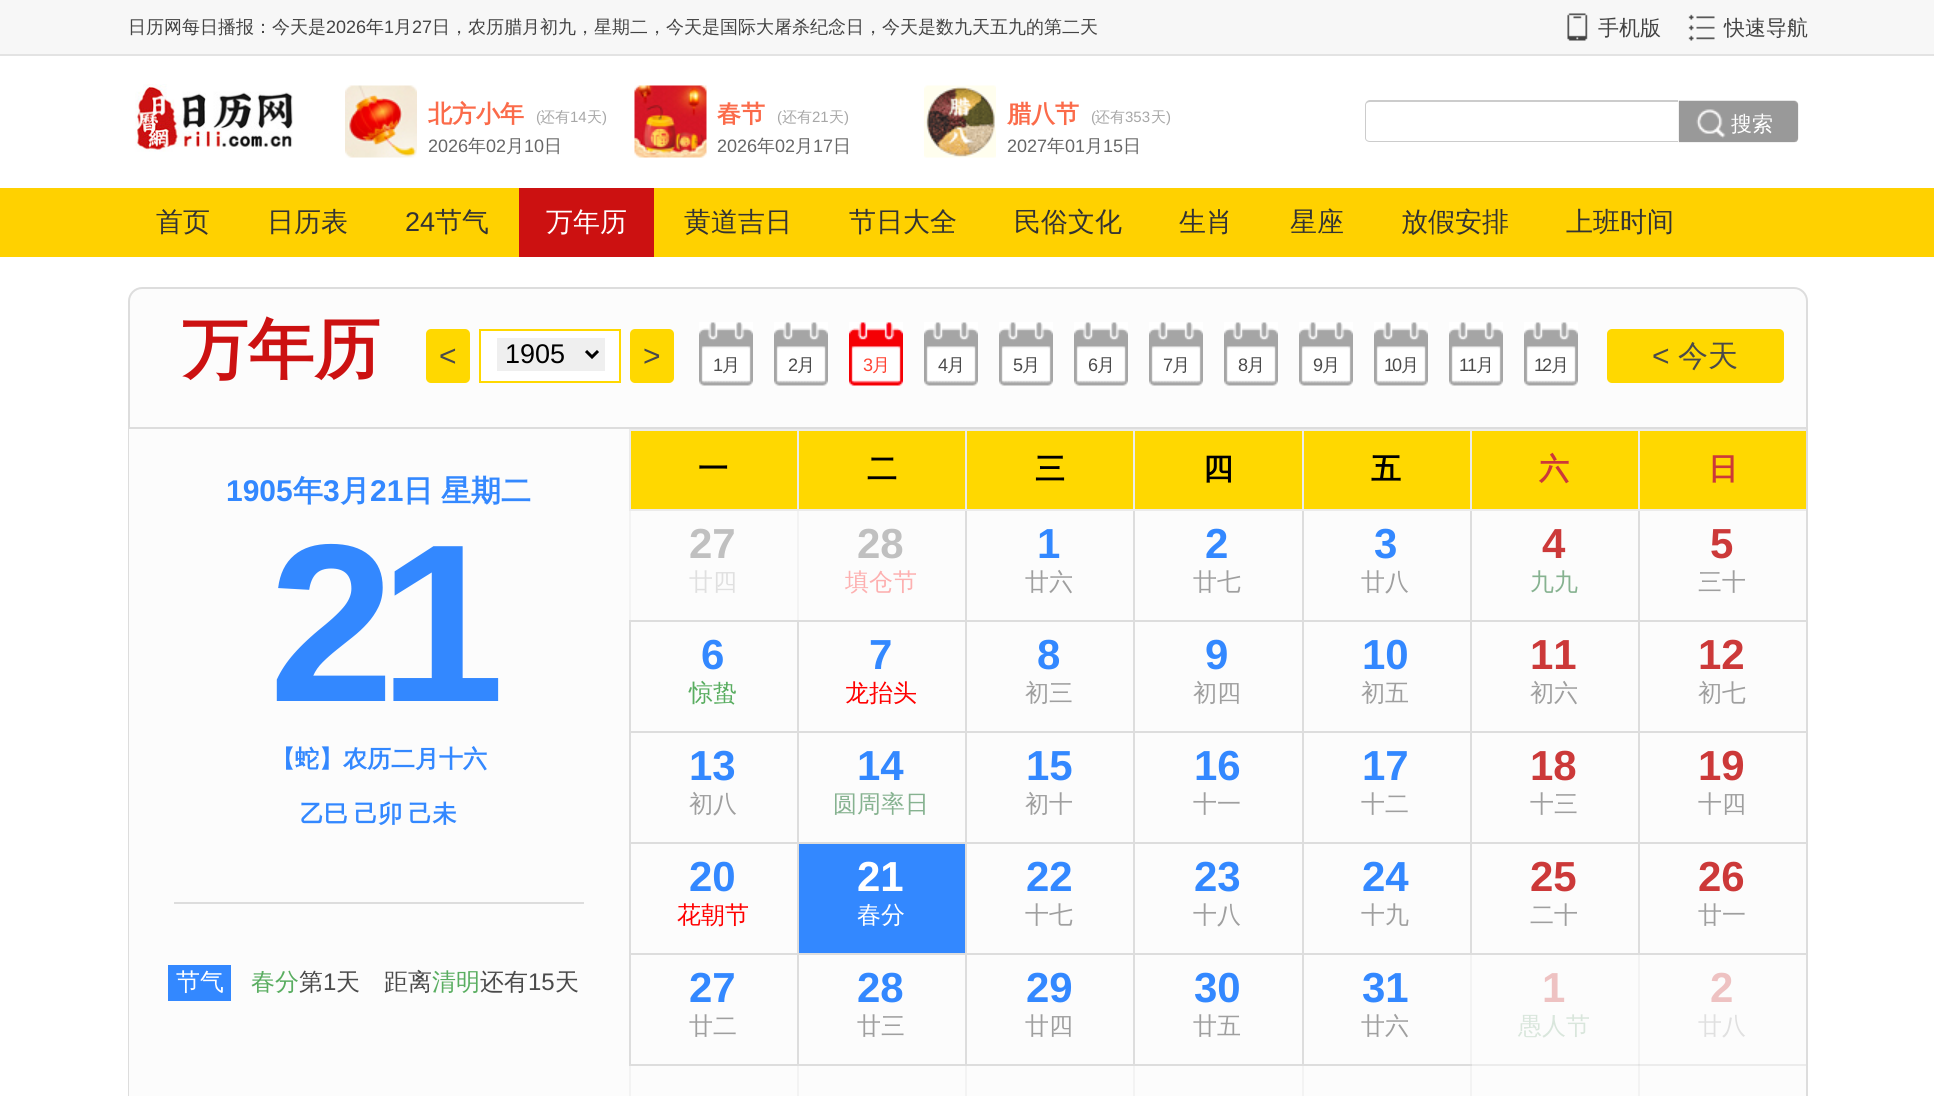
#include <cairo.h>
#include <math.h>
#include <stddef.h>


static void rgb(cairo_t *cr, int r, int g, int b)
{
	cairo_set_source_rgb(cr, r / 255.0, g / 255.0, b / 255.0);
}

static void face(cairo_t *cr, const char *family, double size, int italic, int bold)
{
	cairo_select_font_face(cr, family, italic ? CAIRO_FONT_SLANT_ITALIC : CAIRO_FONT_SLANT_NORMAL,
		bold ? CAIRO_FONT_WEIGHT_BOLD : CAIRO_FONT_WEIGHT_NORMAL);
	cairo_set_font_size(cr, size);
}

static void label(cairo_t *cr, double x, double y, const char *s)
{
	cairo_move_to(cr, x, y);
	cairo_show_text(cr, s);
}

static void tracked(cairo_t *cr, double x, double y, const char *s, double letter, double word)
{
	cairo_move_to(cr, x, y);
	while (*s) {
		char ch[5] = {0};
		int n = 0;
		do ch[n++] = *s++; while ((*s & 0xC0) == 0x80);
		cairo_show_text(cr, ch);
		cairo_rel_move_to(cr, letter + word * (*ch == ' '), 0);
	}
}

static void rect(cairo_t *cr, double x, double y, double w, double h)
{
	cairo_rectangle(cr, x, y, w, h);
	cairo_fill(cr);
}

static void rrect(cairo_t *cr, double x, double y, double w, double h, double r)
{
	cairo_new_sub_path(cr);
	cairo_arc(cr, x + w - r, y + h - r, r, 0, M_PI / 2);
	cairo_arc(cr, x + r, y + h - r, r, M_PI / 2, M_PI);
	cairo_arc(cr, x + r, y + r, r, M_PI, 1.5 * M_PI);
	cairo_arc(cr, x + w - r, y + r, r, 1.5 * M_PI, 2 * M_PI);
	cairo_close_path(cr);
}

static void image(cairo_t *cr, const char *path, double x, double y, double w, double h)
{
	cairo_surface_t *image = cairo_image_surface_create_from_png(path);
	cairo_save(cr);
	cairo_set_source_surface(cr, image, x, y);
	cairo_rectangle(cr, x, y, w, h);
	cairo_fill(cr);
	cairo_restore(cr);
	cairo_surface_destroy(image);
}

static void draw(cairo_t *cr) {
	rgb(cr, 255, 255, 255);
	cairo_paint(cr);
	rgb(cr, 247, 247, 247);
	rect(cr, 0, 0, 1934, 54);
	rgb(cr, 227, 227, 227);
	rect(cr, 0, 54, 1934, 2);
	face(cr, "WenQuanYi Zen Hei Medium", 18, 0, 0);
	rgb(cr, 67, 67, 67);
	label(cr, 128, 33, "日历网每日播报：今天是");
	face(cr, "Liberation Sans", 18, 0, 0);
	label(cr, 326, 33, "2026");
	face(cr, "WenQuanYi Zen Hei Medium", 18, 0, 0);
	label(cr, 366, 33, "年");
	face(cr, "Liberation Sans", 18, 0, 0);
	label(cr, 384, 33, "1");
	face(cr, "WenQuanYi Zen Hei Medium", 18, 0, 0);
	label(cr, 394, 33, "月");
	face(cr, "Liberation Sans", 18, 0, 0);
	label(cr, 412, 33, "27");
	face(cr, "WenQuanYi Zen Hei Medium", 18, 0, 0);
	label(cr, 432, 33, "日，农历腊月初九，星期二，今天是国际大屠杀纪念日，今天是数九天五九的第二天");
	image(cr, "image0.png", 1567, 13, 21, 28);
	face(cr, "WenQuanYi Zen Hei Medium", 21, 0, 0);
	label(cr, 1598, 35, "手机版");
	image(cr, "image1.png", 1688, 14, 27, 27);
	label(cr, 1724, 35, "快速导航");
	image(cr, "image2.png", 135, 84, 158, 68);
	image(cr, "image3.png", 345, 85, 72, 73);
	face(cr, "WenQuanYi Zen Hei", 24, 0, 1);
	rgb(cr, 251, 107, 74);
	label(cr, 428, 122, "北方小年");
	face(cr, "Liberation Sans", 15, 0, 0);
	rgb(cr, 167, 167, 167);
	label(cr, 536, 122, "(");
	face(cr, "WenQuanYi Zen Hei Medium", 15, 0, 0);
	label(cr, 540, 122, "还有");
	face(cr, "Liberation Sans", 15, 0, 0);
	label(cr, 570, 122, "14");
	face(cr, "WenQuanYi Zen Hei Medium", 15, 0, 0);
	label(cr, 587, 122, "天");
	face(cr, "Liberation Sans", 15, 0, 0);
	label(cr, 602, 122, ")");
	face(cr, "Liberation Sans", 18, 0, 0);
	rgb(cr, 102, 102, 102);
	label(cr, 428, 152, "2026");
	face(cr, "WenQuanYi Zen Hei Medium", 18, 0, 0);
	label(cr, 468, 152, "年");
	face(cr, "Liberation Sans", 18, 0, 0);
	label(cr, 486, 152, "02");
	face(cr, "WenQuanYi Zen Hei Medium", 18, 0, 0);
	label(cr, 506, 152, "月");
	face(cr, "Liberation Sans", 18, 0, 0);
	label(cr, 524, 152, "10");
	face(cr, "WenQuanYi Zen Hei Medium", 18, 0, 0);
	label(cr, 544, 152, "日");
	image(cr, "image4.png", 634, 85, 73, 73);
	face(cr, "WenQuanYi Zen Hei", 24, 0, 1);
	rgb(cr, 251, 107, 74);
	label(cr, 717, 122, "春节");
	face(cr, "Liberation Sans", 15, 0, 0);
	rgb(cr, 167, 167, 167);
	label(cr, 777, 122, "(");
	face(cr, "WenQuanYi Zen Hei Medium", 15, 0, 0);
	label(cr, 782, 122, "还有");
	face(cr, "Liberation Sans", 15, 0, 0);
	label(cr, 812, 122, "21");
	face(cr, "WenQuanYi Zen Hei Medium", 15, 0, 0);
	label(cr, 829, 122, "天");
	face(cr, "Liberation Sans", 15, 0, 0);
	label(cr, 844, 122, ")");
	face(cr, "Liberation Sans", 18, 0, 0);
	rgb(cr, 102, 102, 102);
	label(cr, 717, 152, "2026");
	face(cr, "WenQuanYi Zen Hei Medium", 18, 0, 0);
	label(cr, 757, 152, "年");
	face(cr, "Liberation Sans", 18, 0, 0);
	label(cr, 775, 152, "02");
	face(cr, "WenQuanYi Zen Hei Medium", 18, 0, 0);
	label(cr, 795, 152, "月");
	face(cr, "Liberation Sans", 18, 0, 0);
	label(cr, 813, 152, "17");
	face(cr, "WenQuanYi Zen Hei Medium", 18, 0, 0);
	label(cr, 833, 152, "日");
	image(cr, "image5.png", 924, 85, 72, 73);
	face(cr, "WenQuanYi Zen Hei", 24, 0, 1);
	rgb(cr, 251, 107, 74);
	label(cr, 1007, 122, "腊八节");
	face(cr, "Liberation Sans", 15, 0, 0);
	rgb(cr, 167, 167, 167);
	label(cr, 1091, 122, "(");
	face(cr, "WenQuanYi Zen Hei Medium", 15, 0, 0);
	label(cr, 1095, 122, "还有");
	face(cr, "Liberation Sans", 15, 0, 0);
	label(cr, 1125, 122, "353");
	face(cr, "WenQuanYi Zen Hei Medium", 15, 0, 0);
	label(cr, 1151, 122, "天");
	face(cr, "Liberation Sans", 15, 0, 0);
	label(cr, 1166, 122, ")");
	face(cr, "Liberation Sans", 18, 0, 0);
	rgb(cr, 102, 102, 102);
	label(cr, 1007, 152, "2027");
	face(cr, "WenQuanYi Zen Hei Medium", 18, 0, 0);
	label(cr, 1047, 152, "年");
	face(cr, "Liberation Sans", 18, 0, 0);
	label(cr, 1065, 152, "01");
	face(cr, "WenQuanYi Zen Hei Medium", 18, 0, 0);
	label(cr, 1085, 152, "月");
	face(cr, "Liberation Sans", 18, 0, 0);
	label(cr, 1103, 152, "15");
	face(cr, "WenQuanYi Zen Hei Medium", 18, 0, 0);
	label(cr, 1123, 152, "日");
	rgb(cr, 204, 204, 204);
	cairo_set_fill_rule(cr, CAIRO_FILL_RULE_EVEN_ODD);
	cairo_new_path(cr);
	cairo_move_to(cr, 1370, 100);
	cairo_line_to(cr, 1678, 100);
	cairo_line_to(cr, 1678, 142);
	cairo_line_to(cr, 1370, 142);
	cairo_curve_to(cr, 1367, 142, 1365, 140, 1365, 138);
	cairo_line_to(cr, 1365, 105);
	cairo_curve_to(cr, 1365, 103, 1367, 100, 1370, 100);
	cairo_close_path(cr);
	cairo_move_to(cr, 1370, 102);
	cairo_line_to(cr, 1678, 102);
	cairo_line_to(cr, 1678, 141);
	cairo_line_to(cr, 1370, 141);
	cairo_curve_to(cr, 1368, 141, 1366, 140, 1366, 138);
	cairo_line_to(cr, 1366, 105);
	cairo_curve_to(cr, 1366, 103, 1368, 102, 1370, 102);
	cairo_close_path(cr);
	cairo_fill(cr);
	image(cr, "image6.png", 1678, 100, 121, 43);
	face(cr, "WenQuanYi Zen Hei Medium", 21, 0, 0);
	rgb(cr, 255, 255, 255);
	label(cr, 1731, 131, "搜索");
	rgb(cr, 255, 209, 0);
	rect(cr, 0, 188, 1934, 69);
	face(cr, "WenQuanYi Zen Hei Medium", 27, 0, 0);
	rgb(cr, 51, 51, 51);
	label(cr, 156, 231, "首页");
	label(cr, 267, 231, "日历表");
	face(cr, "Liberation Sans", 27, 0, 0);
	label(cr, 405, 231, "24");
	face(cr, "WenQuanYi Zen Hei Medium", 27, 0, 0);
	label(cr, 435, 231, "节气");
	rgb(cr, 204, 17, 17);
	rect(cr, 519, 188, 135, 69);
	rgb(cr, 255, 255, 255);
	label(cr, 546, 231, "万年历");
	rgb(cr, 51, 51, 51);
	label(cr, 684, 231, "黄道吉日");
	label(cr, 849, 231, "节日大全");
	label(cr, 1014, 231, "民俗文化");
	label(cr, 1179, 231, "生肖");
	label(cr, 1290, 231, "星座");
	label(cr, 1401, 231, "放假安排");
	label(cr, 1566, 231, "上班时间");
	rgb(cr, 252, 252, 252);
	cairo_new_path(cr);
	cairo_move_to(cr, 142, 288);
	cairo_line_to(cr, 1794, 288);
	cairo_curve_to(cr, 1801, 288, 1807, 294, 1807, 301);
	cairo_line_to(cr, 1807, 428);
	cairo_line_to(cr, 129, 428);
	cairo_line_to(cr, 129, 301);
	cairo_curve_to(cr, 129, 294, 135, 288, 142, 288);
	cairo_close_path(cr);
	cairo_fill_preserve(cr);
	rgb(cr, 221, 221, 221);
	cairo_stroke(cr);
	face(cr, "WenQuanYi Zen Hei", 66, 0, 1);
	rgb(cr, 204, 17, 17);
	label(cr, 182, 372, "万年历");
	rgb(cr, 255, 216, 0);
	rrect(cr, 426, 329, 44, 54, 5);
	cairo_fill(cr);
	face(cr, "Liberation Sans", 30, 0, 0);
	rgb(cr, 74, 74, 74);
	label(cr, 439, 366, "<");
	rgb(cr, 255, 255, 255);
	cairo_rectangle(cr, 480, 330, 140, 52);
	cairo_fill_preserve(cr);
	rgb(cr, 255, 216, 0);
	cairo_stroke(cr);
	rgb(cr, 239, 239, 239);
	rect(cr, 497, 338, 108, 33);
	cairo_new_path(cr);
	cairo_move_to(cr, 586, 351);
	cairo_line_to(cr, 592, 357);
	cairo_line_to(cr, 598, 351);
	rgb(cr, 0, 0, 0);
	cairo_set_line_width(cr, 3);
	cairo_stroke(cr);
	face(cr, "Liberation Sans", 27, 0, 0);
	label(cr, 505, 363, "1905");
	rgb(cr, 255, 216, 0);
	rrect(cr, 630, 329, 44, 54, 5);
	cairo_fill(cr);
	face(cr, "Liberation Sans", 30, 0, 0);
	rgb(cr, 74, 74, 74);
	label(cr, 643, 366, ">");
	image(cr, "image7.png", 699, 322, 54, 64);
	face(cr, "Liberation Sans", 18, 0, 0);
	tracked(cr, 713, 371, "1", -2, 0);
	face(cr, "WenQuanYi Zen Hei Medium", 18, 0, 0);
	tracked(cr, 722, 371, "月", -2, 0);
	image(cr, "image7.png", 774, 322, 54, 64);
	face(cr, "Liberation Sans", 18, 0, 0);
	tracked(cr, 788, 371, "2", -2, 0);
	face(cr, "WenQuanYi Zen Hei Medium", 18, 0, 0);
	tracked(cr, 797, 371, "月", -2, 0);
	image(cr, "image8.png", 849, 322, 54, 64);
	face(cr, "Liberation Sans", 18, 0, 0);
	rgb(cr, 255, 68, 51);
	tracked(cr, 863, 371, "3", -2, 0);
	face(cr, "WenQuanYi Zen Hei Medium", 18, 0, 0);
	tracked(cr, 872, 371, "月", -2, 0);
	image(cr, "image7.png", 924, 322, 54, 64);
	face(cr, "Liberation Sans", 18, 0, 0);
	rgb(cr, 74, 74, 74);
	tracked(cr, 938, 371, "4", -2, 0);
	face(cr, "WenQuanYi Zen Hei Medium", 18, 0, 0);
	tracked(cr, 947, 371, "月", -2, 0);
	image(cr, "image7.png", 999, 322, 54, 64);
	face(cr, "Liberation Sans", 18, 0, 0);
	tracked(cr, 1013, 371, "5", -2, 0);
	face(cr, "WenQuanYi Zen Hei Medium", 18, 0, 0);
	tracked(cr, 1022, 371, "月", -2, 0);
	image(cr, "image9.png", 1074, 322, 54, 64);
	face(cr, "Liberation Sans", 18, 0, 0);
	tracked(cr, 1088, 371, "6", -2, 0);
	face(cr, "WenQuanYi Zen Hei Medium", 18, 0, 0);
	tracked(cr, 1097, 371, "月", -2, 0);
	image(cr, "image9.png", 1149, 322, 54, 64);
	face(cr, "Liberation Sans", 18, 0, 0);
	tracked(cr, 1163, 371, "7", -2, 0);
	face(cr, "WenQuanYi Zen Hei Medium", 18, 0, 0);
	tracked(cr, 1172, 371, "月", -2, 0);
	image(cr, "image10.png", 1224, 322, 54, 64);
	face(cr, "Liberation Sans", 18, 0, 0);
	tracked(cr, 1238, 371, "8", -2, 0);
	face(cr, "WenQuanYi Zen Hei Medium", 18, 0, 0);
	tracked(cr, 1247, 371, "月", -2, 0);
	image(cr, "image7.png", 1299, 322, 54, 64);
	face(cr, "Liberation Sans", 18, 0, 0);
	tracked(cr, 1313, 371, "9", -2, 0);
	face(cr, "WenQuanYi Zen Hei Medium", 18, 0, 0);
	tracked(cr, 1322, 371, "月", -2, 0);
	image(cr, "image7.png", 1374, 322, 54, 64);
	face(cr, "Liberation Sans", 18, 0, 0);
	tracked(cr, 1384, 371, "10", -2, 0);
	face(cr, "WenQuanYi Zen Hei Medium", 18, 0, 0);
	tracked(cr, 1401, 371, "月", -2, 0);
	image(cr, "image7.png", 1449, 322, 54, 64);
	face(cr, "Liberation Sans", 18, 0, 0);
	tracked(cr, 1459, 371, "11", -2, 0);
	face(cr, "WenQuanYi Zen Hei Medium", 18, 0, 0);
	tracked(cr, 1476, 371, "月", -2, 0);
	image(cr, "image7.png", 1524, 322, 54, 64);
	face(cr, "Liberation Sans", 18, 0, 0);
	tracked(cr, 1534, 371, "12", -2, 0);
	face(cr, "WenQuanYi Zen Hei Medium", 18, 0, 0);
	tracked(cr, 1551, 371, "月", -2, 0);
	rgb(cr, 255, 216, 0);
	rrect(cr, 1607, 329, 177, 54, 5);
	cairo_fill(cr);
	face(cr, "Liberation Sans", 30, 0, 0);
	rgb(cr, 74, 74, 74);
	label(cr, 1652, 366, "<");
	face(cr, "WenQuanYi Zen Hei Medium", 30, 0, 0);
	label(cr, 1678, 366, "今天");
	rgb(cr, 252, 252, 252);
	rect(cr, 129, 429, 1677, 667);
	rgb(cr, 243, 243, 243);
	rect(cr, 629, 509, 2, 112);
	rect(cr, 797, 509, 2, 112);
	rect(cr, 1470, 953, 2, 112);
	rect(cr, 1638, 953, 2, 112);
	rgb(cr, 236, 236, 236);
	rect(cr, 1470, 1064, 170, 2);
	rgb(cr, 221, 221, 221);
	cairo_new_path(cr);
	cairo_move_to(cr, 128, 429);
	cairo_line_to(cr, 1808, 429);
	cairo_line_to(cr, 1808, 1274);
	cairo_curve_to(cr, 1808, 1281, 1801, 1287, 1794, 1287);
	cairo_line_to(cr, 141, 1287);
	cairo_curve_to(cr, 134, 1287, 128, 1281, 128, 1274);
	cairo_close_path(cr);
	cairo_move_to(cr, 129, 429);
	cairo_line_to(cr, 1806, 429);
	cairo_line_to(cr, 1806, 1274);
	cairo_curve_to(cr, 1806, 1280, 1801, 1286, 1794, 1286);
	cairo_line_to(cr, 141, 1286);
	cairo_curve_to(cr, 134, 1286, 129, 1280, 129, 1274);
	cairo_close_path(cr);
	cairo_fill(cr);
	face(cr, "Liberation Sans", 30, 0, 1);
	rgb(cr, 51, 136, 255);
	label(cr, 226, 501, "1905");
	face(cr, "WenQuanYi Zen Hei", 30, 0, 1);
	label(cr, 293, 501, "年");
	face(cr, "Liberation Sans", 30, 0, 1);
	label(cr, 323, 501, "3");
	face(cr, "WenQuanYi Zen Hei", 30, 0, 1);
	label(cr, 340, 501, "月");
	face(cr, "Liberation Sans", 30, 0, 1);
	label(cr, 370, 501, "21");
	face(cr, "WenQuanYi Zen Hei", 30, 0, 1);
	tracked(cr, 403, 501, "日 星期二", 0, -1);
	face(cr, "Liberation Sans", 225, 0, 1);
	tracked(cr, 269, 701, "21", -15, 0);
	face(cr, "WenQuanYi Zen Hei", 24, 0, 1);
	label(cr, 271, 767, "【蛇】农历二月十六");
	tracked(cr, 300, 822, "乙巳 己卯 己未", 0, -1);
	rgb(cr, 221, 221, 221);
	rect(cr, 174, 902, 410, 2);
	rgb(cr, 51, 136, 255);
	rect(cr, 168, 965, 63, 36);
	face(cr, "WenQuanYi Zen Hei Medium", 24, 0, 0);
	rgb(cr, 255, 255, 255);
	label(cr, 176, 990, "节气");
	rgb(cr, 89, 173, 96);
	label(cr, 251, 990, "春分");
	rgb(cr, 74, 74, 74);
	label(cr, 299, 990, "第");
	face(cr, "Liberation Sans", 24, 0, 0);
	label(cr, 323, 990, "1");
	face(cr, "WenQuanYi Zen Hei Medium", 24, 0, 0);
	label(cr, 336, 990, "天　距离");
	rgb(cr, 89, 173, 96);
	label(cr, 432, 990, "清明");
	rgb(cr, 74, 74, 74);
	label(cr, 480, 990, "还有");
	face(cr, "Liberation Sans", 24, 0, 0);
	label(cr, 528, 990, "15");
	face(cr, "WenQuanYi Zen Hei Medium", 24, 0, 0);
	label(cr, 555, 990, "天");
	rgb(cr, 255, 216, 0);
	rect(cr, 631, 431, 166, 78);
	rgb(cr, 235, 235, 235);
	rect(cr, 1638, 429, 168, 2);
	rgb(cr, 221, 221, 221);
	rect(cr, 1638, 620, 168, 2);
	rect(cr, 1638, 731, 168, 2);
	rect(cr, 1638, 842, 168, 2);
	rect(cr, 1638, 953, 168, 2);
	rect(cr, 1638, 842, 2, 112);
	rect(cr, 1470, 842, 170, 2);
	rect(cr, 1638, 731, 2, 112);
	rect(cr, 1470, 731, 170, 2);
	rect(cr, 1638, 620, 2, 112);
	rect(cr, 1470, 620, 170, 2);
	rect(cr, 1638, 509, 2, 112);
	rgb(cr, 235, 235, 235);
	rect(cr, 1638, 509, 168, 2);
	rect(cr, 1638, 429, 2, 81);
	rect(cr, 1470, 429, 170, 2);
	rgb(cr, 221, 221, 221);
	rect(cr, 1302, 953, 170, 2);
	rect(cr, 1470, 953, 170, 2);
	rect(cr, 1470, 842, 2, 112);
	rect(cr, 1302, 842, 170, 2);
	rect(cr, 1470, 731, 2, 112);
	rect(cr, 1302, 731, 170, 2);
	rect(cr, 1470, 620, 2, 112);
	rect(cr, 1302, 620, 170, 2);
	rect(cr, 1470, 509, 2, 112);
	rgb(cr, 235, 235, 235);
	rect(cr, 1470, 509, 170, 2);
	rect(cr, 1470, 429, 2, 81);
	rect(cr, 1302, 429, 170, 2);
	rgb(cr, 243, 243, 243);
	rect(cr, 1302, 1064, 2, 32);
	rect(cr, 1470, 1064, 2, 32);
	rgb(cr, 221, 221, 221);
	rect(cr, 1302, 1064, 170, 2);
	rect(cr, 1302, 953, 2, 112);
	rect(cr, 1133, 953, 171, 2);
	rect(cr, 1302, 842, 2, 112);
	rect(cr, 1133, 842, 171, 2);
	rect(cr, 1302, 731, 2, 112);
	rect(cr, 1133, 731, 171, 2);
	rect(cr, 1302, 620, 2, 112);
	rect(cr, 1133, 620, 171, 2);
	rect(cr, 1302, 509, 2, 112);
	rgb(cr, 235, 235, 235);
	rect(cr, 1302, 509, 170, 2);
	rect(cr, 1302, 429, 2, 81);
	rect(cr, 1133, 429, 171, 2);
	rgb(cr, 243, 243, 243);
	rect(cr, 1133, 1064, 2, 32);
	rgb(cr, 221, 221, 221);
	rect(cr, 1133, 1064, 171, 2);
	rect(cr, 1133, 953, 2, 112);
	rect(cr, 965, 953, 169, 2);
	rect(cr, 1133, 842, 2, 112);
	rect(cr, 965, 842, 169, 2);
	rect(cr, 1133, 731, 2, 112);
	rect(cr, 965, 731, 169, 2);
	rect(cr, 1133, 620, 2, 112);
	rect(cr, 965, 620, 169, 2);
	rect(cr, 1133, 509, 2, 112);
	rgb(cr, 235, 235, 235);
	rect(cr, 1133, 509, 171, 2);
	rect(cr, 1133, 429, 2, 81);
	rect(cr, 965, 429, 169, 2);
	rgb(cr, 243, 243, 243);
	rect(cr, 965, 1064, 2, 32);
	rgb(cr, 221, 221, 221);
	rect(cr, 965, 1064, 169, 2);
	rect(cr, 965, 953, 2, 112);
	rect(cr, 797, 953, 169, 2);
	rect(cr, 965, 842, 2, 112);
	rect(cr, 797, 842, 169, 2);
	rect(cr, 965, 731, 2, 112);
	rect(cr, 797, 731, 169, 2);
	rect(cr, 965, 620, 2, 112);
	rect(cr, 797, 620, 169, 2);
	rect(cr, 965, 509, 2, 112);
	rgb(cr, 235, 235, 235);
	rect(cr, 965, 509, 169, 2);
	rect(cr, 965, 429, 2, 81);
	rect(cr, 797, 429, 169, 2);
	rect(cr, 797, 509, 169, 2);
	rect(cr, 797, 429, 2, 81);
	rect(cr, 629, 429, 169, 2);
	rect(cr, 629, 509, 169, 2);
	rect(cr, 629, 429, 2, 81);
	face(cr, "WenQuanYi Zen Hei", 30, 0, 1);
	rgb(cr, 0, 0, 0);
	label(cr, 698, 479, "一");
	rgb(cr, 255, 216, 0);
	rect(cr, 799, 431, 166, 78);
	rgb(cr, 0, 0, 0);
	label(cr, 867, 479, "二");
	rgb(cr, 255, 216, 0);
	rect(cr, 967, 431, 166, 78);
	rgb(cr, 0, 0, 0);
	label(cr, 1035, 479, "三");
	rgb(cr, 255, 216, 0);
	rect(cr, 1135, 431, 167, 78);
	rgb(cr, 0, 0, 0);
	label(cr, 1203, 479, "四");
	rgb(cr, 255, 216, 0);
	rect(cr, 1304, 431, 166, 78);
	rgb(cr, 0, 0, 0);
	label(cr, 1371, 479, "五");
	rgb(cr, 255, 216, 0);
	rect(cr, 1472, 431, 166, 78);
	rgb(cr, 204, 57, 57);
	label(cr, 1539, 479, "六");
	rgb(cr, 255, 216, 0);
	rect(cr, 1640, 431, 166, 78);
	rgb(cr, 204, 57, 57);
	label(cr, 1708, 479, "日");
	face(cr, "Liberation Sans", 42, 0, 1);
	rgb(cr, 192, 192, 192);
	label(cr, 689, 558, "27");
	face(cr, "WenQuanYi Zen Hei Medium", 24, 0, 0);
	rgb(cr, 224, 224, 224);
	label(cr, 689, 590, "廿四");
	face(cr, "Liberation Sans", 42, 0, 1);
	rgb(cr, 192, 192, 192);
	label(cr, 857, 558, "28");
	face(cr, "WenQuanYi Zen Hei Medium", 24, 0, 0);
	rgb(cr, 253, 176, 176);
	label(cr, 845, 590, "填仓节");
	face(cr, "Liberation Sans", 42, 0, 1);
	rgb(cr, 51, 136, 255);
	label(cr, 1037, 558, "1");
	face(cr, "WenQuanYi Zen Hei Medium", 24, 0, 0);
	rgb(cr, 159, 159, 159);
	label(cr, 1025, 590, "廿六");
	face(cr, "Liberation Sans", 42, 0, 1);
	rgb(cr, 51, 136, 255);
	label(cr, 1205, 558, "2");
	face(cr, "WenQuanYi Zen Hei Medium", 24, 0, 0);
	rgb(cr, 159, 159, 159);
	label(cr, 1193, 590, "廿七");
	face(cr, "Liberation Sans", 42, 0, 1);
	rgb(cr, 51, 136, 255);
	label(cr, 1374, 558, "3");
	face(cr, "WenQuanYi Zen Hei Medium", 24, 0, 0);
	rgb(cr, 159, 159, 159);
	label(cr, 1361, 590, "廿八");
	face(cr, "Liberation Sans", 42, 0, 1);
	rgb(cr, 204, 57, 57);
	label(cr, 1542, 558, "4");
	face(cr, "WenQuanYi Zen Hei Medium", 24, 0, 0);
	rgb(cr, 134, 178, 144);
	label(cr, 1530, 590, "九九");
	face(cr, "Liberation Sans", 42, 0, 1);
	rgb(cr, 204, 57, 57);
	label(cr, 1710, 558, "5");
	face(cr, "WenQuanYi Zen Hei Medium", 24, 0, 0);
	rgb(cr, 159, 159, 159);
	label(cr, 1698, 590, "三十");
	rgb(cr, 243, 243, 243);
	rect(cr, 797, 1064, 2, 32);
	rgb(cr, 221, 221, 221);
	rect(cr, 797, 1064, 169, 2);
	rect(cr, 797, 953, 2, 112);
	rect(cr, 629, 953, 169, 2);
	rect(cr, 797, 842, 2, 112);
	rect(cr, 629, 842, 169, 2);
	rect(cr, 797, 731, 2, 112);
	rect(cr, 629, 731, 169, 2);
	rect(cr, 797, 620, 2, 112);
	rect(cr, 629, 620, 169, 2);
	rgb(cr, 243, 243, 243);
	rect(cr, 629, 1064, 2, 32);
	rgb(cr, 221, 221, 221);
	rect(cr, 629, 1064, 169, 2);
	rect(cr, 629, 953, 2, 112);
	rect(cr, 629, 842, 2, 112);
	rect(cr, 629, 731, 2, 112);
	rect(cr, 629, 620, 2, 112);
	face(cr, "Liberation Sans", 42, 0, 1);
	rgb(cr, 51, 136, 255);
	label(cr, 701, 669, "6");
	face(cr, "WenQuanYi Zen Hei Medium", 24, 0, 0);
	rgb(cr, 89, 173, 96);
	label(cr, 689, 701, "惊蛰");
	face(cr, "Liberation Sans", 42, 0, 1);
	rgb(cr, 51, 136, 255);
	label(cr, 869, 669, "7");
	face(cr, "WenQuanYi Zen Hei Medium", 24, 0, 0);
	rgb(cr, 255, 0, 0);
	label(cr, 845, 701, "龙抬头");
	face(cr, "Liberation Sans", 42, 0, 1);
	rgb(cr, 51, 136, 255);
	label(cr, 1037, 669, "8");
	face(cr, "WenQuanYi Zen Hei Medium", 24, 0, 0);
	rgb(cr, 159, 159, 159);
	label(cr, 1025, 701, "初三");
	face(cr, "Liberation Sans", 42, 0, 1);
	rgb(cr, 51, 136, 255);
	label(cr, 1205, 669, "9");
	face(cr, "WenQuanYi Zen Hei Medium", 24, 0, 0);
	rgb(cr, 159, 159, 159);
	label(cr, 1193, 701, "初四");
	face(cr, "Liberation Sans", 42, 0, 1);
	rgb(cr, 51, 136, 255);
	label(cr, 1362, 669, "10");
	face(cr, "WenQuanYi Zen Hei Medium", 24, 0, 0);
	rgb(cr, 159, 159, 159);
	label(cr, 1361, 701, "初五");
	face(cr, "Liberation Sans", 42, 0, 1);
	rgb(cr, 204, 57, 57);
	label(cr, 1530, 669, "11");
	face(cr, "WenQuanYi Zen Hei Medium", 24, 0, 0);
	rgb(cr, 159, 159, 159);
	label(cr, 1530, 701, "初六");
	face(cr, "Liberation Sans", 42, 0, 1);
	rgb(cr, 204, 57, 57);
	label(cr, 1698, 669, "12");
	face(cr, "WenQuanYi Zen Hei Medium", 24, 0, 0);
	rgb(cr, 159, 159, 159);
	label(cr, 1698, 701, "初七");
	face(cr, "Liberation Sans", 42, 0, 1);
	rgb(cr, 51, 136, 255);
	label(cr, 689, 780, "13");
	face(cr, "WenQuanYi Zen Hei Medium", 24, 0, 0);
	rgb(cr, 159, 159, 159);
	label(cr, 689, 812, "初八");
	face(cr, "Liberation Sans", 42, 0, 1);
	rgb(cr, 51, 136, 255);
	label(cr, 857, 780, "14");
	face(cr, "WenQuanYi Zen Hei Medium", 24, 0, 0);
	rgb(cr, 134, 178, 144);
	label(cr, 833, 812, "圆周率日");
	face(cr, "Liberation Sans", 42, 0, 1);
	rgb(cr, 51, 136, 255);
	label(cr, 1026, 780, "15");
	face(cr, "WenQuanYi Zen Hei Medium", 24, 0, 0);
	rgb(cr, 159, 159, 159);
	label(cr, 1025, 812, "初十");
	face(cr, "Liberation Sans", 42, 0, 1);
	rgb(cr, 51, 136, 255);
	label(cr, 1194, 780, "16");
	face(cr, "WenQuanYi Zen Hei Medium", 24, 0, 0);
	rgb(cr, 159, 159, 159);
	label(cr, 1193, 812, "十一");
	face(cr, "Liberation Sans", 42, 0, 1);
	rgb(cr, 51, 136, 255);
	label(cr, 1362, 780, "17");
	face(cr, "WenQuanYi Zen Hei Medium", 24, 0, 0);
	rgb(cr, 159, 159, 159);
	label(cr, 1361, 812, "十二");
	face(cr, "Liberation Sans", 42, 0, 1);
	rgb(cr, 204, 57, 57);
	label(cr, 1530, 780, "18");
	face(cr, "WenQuanYi Zen Hei Medium", 24, 0, 0);
	rgb(cr, 159, 159, 159);
	label(cr, 1530, 812, "十三");
	face(cr, "Liberation Sans", 42, 0, 1);
	rgb(cr, 204, 57, 57);
	label(cr, 1698, 780, "19");
	face(cr, "WenQuanYi Zen Hei Medium", 24, 0, 0);
	rgb(cr, 159, 159, 159);
	label(cr, 1698, 812, "十四");
	face(cr, "Liberation Sans", 42, 0, 1);
	rgb(cr, 51, 136, 255);
	label(cr, 689, 891, "20");
	face(cr, "WenQuanYi Zen Hei Medium", 24, 0, 0);
	rgb(cr, 255, 0, 0);
	label(cr, 677, 923, "花朝节");
	rgb(cr, 51, 136, 255);
	rect(cr, 799, 844, 166, 109);
	face(cr, "Liberation Sans", 42, 0, 1);
	rgb(cr, 255, 255, 255);
	label(cr, 857, 891, "21");
	face(cr, "WenQuanYi Zen Hei Medium", 24, 0, 0);
	label(cr, 857, 923, "春分");
	face(cr, "Liberation Sans", 42, 0, 1);
	rgb(cr, 51, 136, 255);
	label(cr, 1026, 891, "22");
	face(cr, "WenQuanYi Zen Hei Medium", 24, 0, 0);
	rgb(cr, 159, 159, 159);
	label(cr, 1025, 923, "十七");
	face(cr, "Liberation Sans", 42, 0, 1);
	rgb(cr, 51, 136, 255);
	label(cr, 1194, 891, "23");
	face(cr, "WenQuanYi Zen Hei Medium", 24, 0, 0);
	rgb(cr, 159, 159, 159);
	label(cr, 1193, 923, "十八");
	face(cr, "Liberation Sans", 42, 0, 1);
	rgb(cr, 51, 136, 255);
	label(cr, 1362, 891, "24");
	face(cr, "WenQuanYi Zen Hei Medium", 24, 0, 0);
	rgb(cr, 159, 159, 159);
	label(cr, 1361, 923, "十九");
	face(cr, "Liberation Sans", 42, 0, 1);
	rgb(cr, 204, 57, 57);
	label(cr, 1530, 891, "25");
	face(cr, "WenQuanYi Zen Hei Medium", 24, 0, 0);
	rgb(cr, 159, 159, 159);
	label(cr, 1530, 923, "二十");
	face(cr, "Liberation Sans", 42, 0, 1);
	rgb(cr, 204, 57, 57);
	label(cr, 1698, 891, "26");
	face(cr, "WenQuanYi Zen Hei Medium", 24, 0, 0);
	rgb(cr, 159, 159, 159);
	label(cr, 1698, 923, "廿一");
	face(cr, "Liberation Sans", 42, 0, 1);
	rgb(cr, 51, 136, 255);
	label(cr, 689, 1002, "27");
	face(cr, "WenQuanYi Zen Hei Medium", 24, 0, 0);
	rgb(cr, 159, 159, 159);
	label(cr, 689, 1034, "廿二");
	face(cr, "Liberation Sans", 42, 0, 1);
	rgb(cr, 51, 136, 255);
	label(cr, 857, 1002, "28");
	face(cr, "WenQuanYi Zen Hei Medium", 24, 0, 0);
	rgb(cr, 159, 159, 159);
	label(cr, 857, 1034, "廿三");
	face(cr, "Liberation Sans", 42, 0, 1);
	rgb(cr, 51, 136, 255);
	label(cr, 1026, 1002, "29");
	face(cr, "WenQuanYi Zen Hei Medium", 24, 0, 0);
	rgb(cr, 159, 159, 159);
	label(cr, 1025, 1034, "廿四");
	face(cr, "Liberation Sans", 42, 0, 1);
	rgb(cr, 51, 136, 255);
	label(cr, 1194, 1002, "30");
	face(cr, "WenQuanYi Zen Hei Medium", 24, 0, 0);
	rgb(cr, 159, 159, 159);
	label(cr, 1193, 1034, "廿五");
	face(cr, "Liberation Sans", 42, 0, 1);
	rgb(cr, 51, 136, 255);
	label(cr, 1362, 1002, "31");
	face(cr, "WenQuanYi Zen Hei Medium", 24, 0, 0);
	rgb(cr, 159, 159, 159);
	label(cr, 1361, 1034, "廿六");
	face(cr, "Liberation Sans", 42, 0, 1);
	rgb(cr, 238, 194, 194);
	label(cr, 1542, 1002, "1");
	face(cr, "WenQuanYi Zen Hei Medium", 24, 0, 0);
	rgb(cr, 217, 230, 220);
	label(cr, 1518, 1034, "愚人节");
	face(cr, "Liberation Sans", 42, 0, 1);
	rgb(cr, 238, 194, 194);
	label(cr, 1710, 1002, "2");
	face(cr, "WenQuanYi Zen Hei Medium", 24, 0, 0);
	rgb(cr, 224, 224, 224);
	label(cr, 1698, 1034, "廿八");
	rgb(cr, 236, 236, 236);
	rect(cr, 1638, 1064, 168, 2);
	rgb(cr, 243, 243, 243);
	rect(cr, 1638, 1064, 2, 32);
	rgb(cr, 229, 229, 229);
	rect(cr, 1638, 1065, 2, 1);
	rgb(cr, 227, 227, 227);
	rect(cr, 1638, 1064, 2, 1);
}

int main(void) {
	cairo_surface_t *surface = cairo_image_surface_create(CAIRO_FORMAT_RGB24, 1934, 1096);
	cairo_t *cr = cairo_create(surface);
	cairo_font_options_t *options = cairo_font_options_create();
	cairo_font_options_set_hint_metrics(options, CAIRO_HINT_METRICS_OFF);
	cairo_font_options_set_hint_style(options, CAIRO_HINT_STYLE_NONE);
	cairo_set_font_options(cr, options);
	cairo_set_miter_limit(cr, 4);
	draw(cr);
	cairo_surface_write_to_png(surface, "render.png");
	cairo_font_options_destroy(options);
	cairo_destroy(cr);
	cairo_surface_destroy(surface);
	return 0;
}
